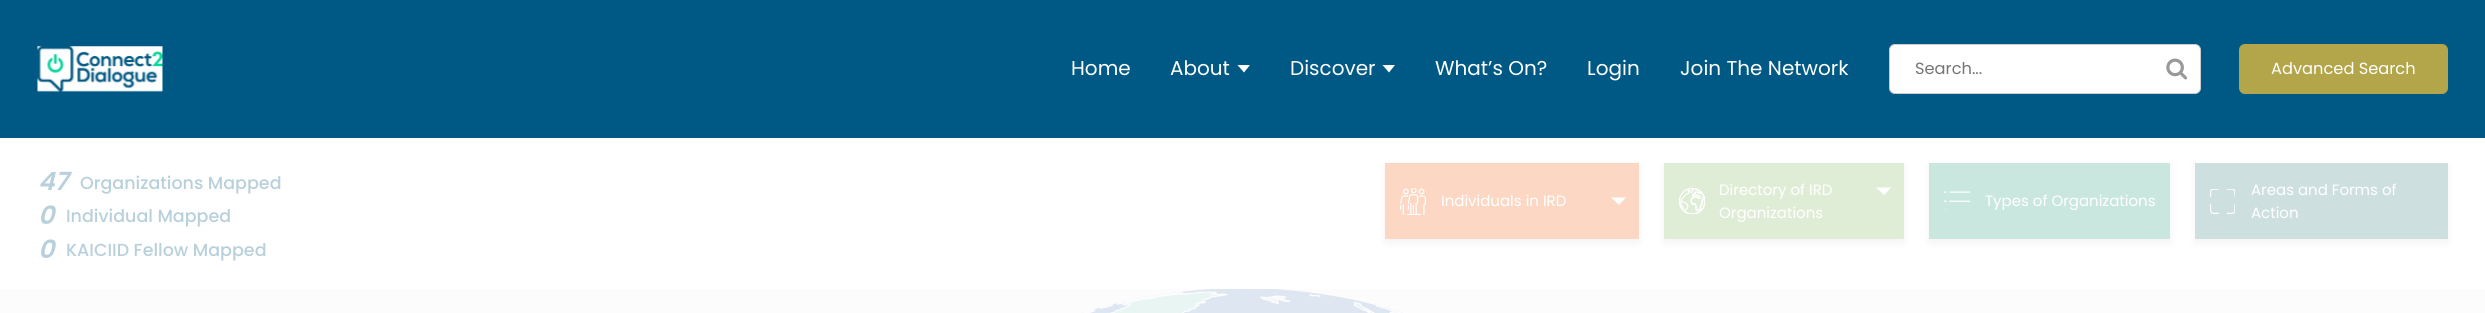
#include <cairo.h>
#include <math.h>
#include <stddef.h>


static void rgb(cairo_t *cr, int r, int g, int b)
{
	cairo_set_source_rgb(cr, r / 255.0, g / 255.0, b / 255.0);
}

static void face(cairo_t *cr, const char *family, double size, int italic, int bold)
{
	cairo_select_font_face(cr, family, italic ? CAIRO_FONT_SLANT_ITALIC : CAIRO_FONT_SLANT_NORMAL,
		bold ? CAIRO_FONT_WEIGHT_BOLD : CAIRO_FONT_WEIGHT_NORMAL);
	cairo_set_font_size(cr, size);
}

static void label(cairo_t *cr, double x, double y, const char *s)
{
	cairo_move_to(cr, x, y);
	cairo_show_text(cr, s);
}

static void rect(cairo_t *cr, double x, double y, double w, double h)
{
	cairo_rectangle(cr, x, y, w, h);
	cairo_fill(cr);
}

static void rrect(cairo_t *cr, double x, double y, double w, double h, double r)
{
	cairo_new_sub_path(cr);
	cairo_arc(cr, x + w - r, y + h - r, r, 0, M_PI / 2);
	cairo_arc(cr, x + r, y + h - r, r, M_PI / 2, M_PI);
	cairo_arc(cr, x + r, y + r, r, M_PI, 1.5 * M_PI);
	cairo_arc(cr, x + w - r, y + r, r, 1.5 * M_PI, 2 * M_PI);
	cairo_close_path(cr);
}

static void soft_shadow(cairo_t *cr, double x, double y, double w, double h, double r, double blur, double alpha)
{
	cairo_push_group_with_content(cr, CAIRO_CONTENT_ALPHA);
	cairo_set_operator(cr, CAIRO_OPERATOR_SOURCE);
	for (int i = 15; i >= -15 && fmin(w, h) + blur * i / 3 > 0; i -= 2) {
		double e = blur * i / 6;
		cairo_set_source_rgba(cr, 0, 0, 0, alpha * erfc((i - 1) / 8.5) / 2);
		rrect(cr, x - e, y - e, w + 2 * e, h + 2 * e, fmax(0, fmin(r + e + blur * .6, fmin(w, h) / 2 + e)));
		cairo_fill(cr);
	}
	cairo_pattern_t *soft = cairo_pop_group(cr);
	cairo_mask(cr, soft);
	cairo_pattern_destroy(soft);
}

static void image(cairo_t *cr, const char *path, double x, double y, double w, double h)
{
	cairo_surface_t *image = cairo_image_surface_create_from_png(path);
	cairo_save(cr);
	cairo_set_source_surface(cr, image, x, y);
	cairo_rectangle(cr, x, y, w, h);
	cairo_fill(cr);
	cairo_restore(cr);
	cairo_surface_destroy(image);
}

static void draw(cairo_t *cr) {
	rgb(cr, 252, 252, 253);
	cairo_paint(cr);
	rgb(cr, 0, 89, 132);
	rect(cr, 0, 0, 2485, 138);
	image(cr, "image0.png", 37, 46, 126, 46);
	face(cr, "Poppins", 20, 0, 0);
	rgb(cr, 255, 255, 255);
	label(cr, 1071, 75, "Home");
	label(cr, 1170, 75, "About");
	cairo_new_path(cr);
	cairo_move_to(cr, 1237.5, 65);
	cairo_line_to(cr, 1250, 65);
	cairo_line_to(cr, 1244, 72.5);
	cairo_close_path(cr);
	cairo_fill(cr);
	label(cr, 1290, 75, "Discover");
	cairo_new_path(cr);
	cairo_move_to(cr, 1382.5, 65);
	cairo_line_to(cr, 1395, 65);
	cairo_line_to(cr, 1389, 72.5);
	cairo_close_path(cr);
	cairo_fill(cr);
	label(cr, 1435, 75, "What’s On?");
	label(cr, 1587, 75, "Login");
	label(cr, 1680, 75, "Join The Network");
	rrect(cr, 1889.5, 44.5, 311, 49, 5.5);
	cairo_fill_preserve(cr);
	rgb(cr, 204, 204, 204);
	cairo_set_line_width(cr, 1);
	cairo_stroke(cr);
	face(cr, "Poppins", 16.25, 0, 0);
	rgb(cr, 117, 117, 117);
	label(cr, 1915, 74, "Search...");
	image(cr, "image1.png", 2166, 58, 22, 22);
	rgb(cr, 179, 166, 74);
	rrect(cr, 2239, 44, 209, 50, 6);
	cairo_fill(cr);
	rgb(cr, 255, 255, 255);
	label(cr, 2271, 74, "Advanced Search");
	rect(cr, 0, 138, 2485, 151);
	face(cr, "Poppins SemiBold", 25, 1, 0);
	rgb(cr, 184, 208, 219);
	label(cr, 38, 190, "47");
	face(cr, "Poppins Medium", 17.5, 0, 0);
	label(cr, 80, 189, "Organizations Mapped");
	face(cr, "Poppins SemiBold", 25, 1, 0);
	label(cr, 38, 224, "0");
	face(cr, "Poppins Medium", 17.5, 0, 0);
	label(cr, 66, 222, "Individual Mapped");
	face(cr, "Poppins SemiBold", 25, 1, 0);
	label(cr, 38, 258, "0");
	face(cr, "Poppins Medium", 17.5, 0, 0);
	label(cr, 66, 256, "KAICIID Fellow Mapped");
	rgb(cr, 184, 184, 184);
	soft_shadow(cr, 1385, 166, 254, 77, 0, 4, 0.16);
	rgb(cr, 252, 216, 196);
	rect(cr, 1385, 163, 254, 76);
	image(cr, "image2.png", 1400, 188, 26, 27);
	face(cr, "Poppins", 15, 0, 0);
	rgb(cr, 255, 255, 255);
	label(cr, 1441, 206, "Individuals in IRD");
	cairo_new_path(cr);
	cairo_move_to(cr, 1611, 197.5);
	cairo_line_to(cr, 1626, 197.5);
	cairo_line_to(cr, 1619, 205);
	cairo_close_path(cr);
	cairo_fill(cr);
	rgb(cr, 184, 184, 184);
	soft_shadow(cr, 1664, 166, 240, 77, 0, 4, 0.16);
	rgb(cr, 224, 237, 214);
	rect(cr, 1664, 163, 240, 76);
	image(cr, "image3.png", 1679, 188, 26, 26);
	rgb(cr, 255, 255, 255);
	label(cr, 1719, 195, "Directory of IRD");
	label(cr, 1719, 218, "Organizations");
	cairo_new_path(cr);
	cairo_move_to(cr, 1876, 187.5);
	cairo_line_to(cr, 1891, 187.5);
	cairo_line_to(cr, 1884, 195);
	cairo_close_path(cr);
	cairo_fill(cr);
	rgb(cr, 184, 184, 184);
	soft_shadow(cr, 1929, 166, 241, 77, 0, 4, 0.16);
	rgb(cr, 202, 231, 223);
	rect(cr, 1929, 163, 241, 76);
	image(cr, "image4.png", 1944, 191, 26, 19);
	rgb(cr, 255, 255, 255);
	label(cr, 1985, 206, "Types of Organizations");
	rgb(cr, 184, 184, 184);
	soft_shadow(cr, 2195, 166, 253, 77, 0, 4, 0.16);
	rgb(cr, 205, 224, 223);
	rect(cr, 2195, 163, 253, 76);
	image(cr, "image5.png", 2210, 189, 25, 25);
	rgb(cr, 255, 255, 255);
	label(cr, 2251, 195, "Areas and Forms of");
	label(cr, 2251, 218, "Action");
	image(cr, "image6.png", 1082, 288, 321, 25);
}

int main(void) {
	cairo_surface_t *surface = cairo_image_surface_create(CAIRO_FORMAT_RGB24, 2485, 313);
	cairo_t *cr = cairo_create(surface);
	cairo_font_options_t *options = cairo_font_options_create();
	cairo_font_options_set_hint_metrics(options, CAIRO_HINT_METRICS_OFF);
	cairo_font_options_set_hint_style(options, CAIRO_HINT_STYLE_NONE);
	cairo_set_font_options(cr, options);
	cairo_set_miter_limit(cr, 4);
	draw(cr);
	cairo_surface_write_to_png(surface, "render.png");
	cairo_font_options_destroy(options);
	cairo_destroy(cr);
	cairo_surface_destroy(surface);
	return 0;
}
